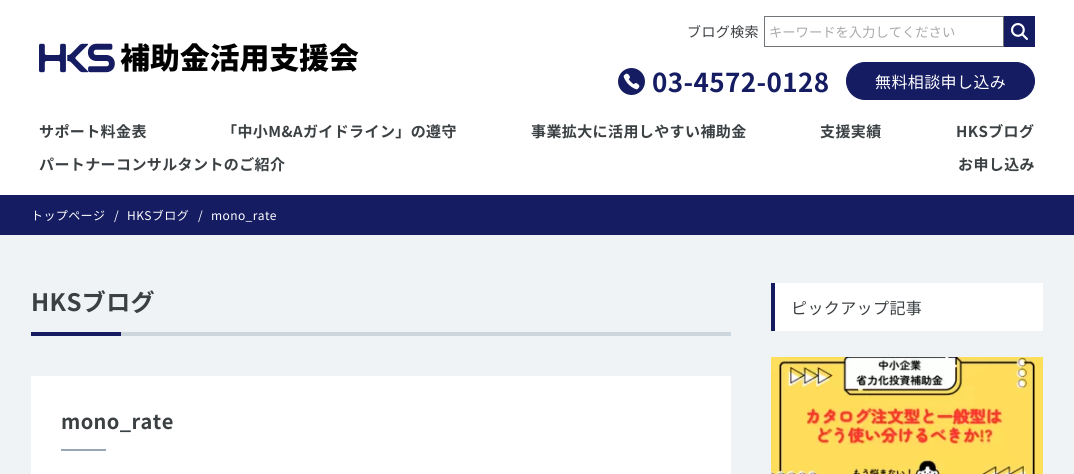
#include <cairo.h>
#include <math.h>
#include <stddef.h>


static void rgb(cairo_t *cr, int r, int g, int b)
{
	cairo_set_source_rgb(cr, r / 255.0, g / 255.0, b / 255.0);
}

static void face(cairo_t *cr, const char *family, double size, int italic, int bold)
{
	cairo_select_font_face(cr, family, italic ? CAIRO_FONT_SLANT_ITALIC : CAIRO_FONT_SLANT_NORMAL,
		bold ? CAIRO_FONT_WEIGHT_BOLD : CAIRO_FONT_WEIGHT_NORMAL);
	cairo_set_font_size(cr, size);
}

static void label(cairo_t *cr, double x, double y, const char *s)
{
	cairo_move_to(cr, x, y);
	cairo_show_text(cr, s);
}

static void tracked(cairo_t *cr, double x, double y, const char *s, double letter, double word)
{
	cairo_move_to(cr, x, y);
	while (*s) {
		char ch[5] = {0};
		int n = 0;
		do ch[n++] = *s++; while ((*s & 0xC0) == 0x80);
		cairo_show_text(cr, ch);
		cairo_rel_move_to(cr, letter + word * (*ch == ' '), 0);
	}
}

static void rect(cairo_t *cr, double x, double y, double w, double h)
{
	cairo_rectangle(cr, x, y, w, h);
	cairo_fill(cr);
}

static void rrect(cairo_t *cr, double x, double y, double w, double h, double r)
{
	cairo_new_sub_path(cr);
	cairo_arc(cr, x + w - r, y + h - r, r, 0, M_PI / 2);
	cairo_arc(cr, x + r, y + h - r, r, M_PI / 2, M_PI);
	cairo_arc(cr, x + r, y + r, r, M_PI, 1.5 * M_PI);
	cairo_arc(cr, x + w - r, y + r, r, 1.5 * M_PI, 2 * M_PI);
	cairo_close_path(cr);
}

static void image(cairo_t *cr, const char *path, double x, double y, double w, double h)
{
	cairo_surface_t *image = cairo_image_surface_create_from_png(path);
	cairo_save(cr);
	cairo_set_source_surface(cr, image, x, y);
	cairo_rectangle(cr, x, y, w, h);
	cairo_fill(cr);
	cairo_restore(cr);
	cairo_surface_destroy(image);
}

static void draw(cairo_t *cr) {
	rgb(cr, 255, 255, 255);
	cairo_paint(cr);
	image(cr, "image0.png", 39, 43, 320, 30);
	face(cr, "Noto Sans JP", 14, 0, 0);
	rgb(cr, 59, 64, 67);
	tracked(cr, 687, 37, "ブログ検索", 0.4, 0);
	cairo_rectangle(cr, 764.5, 16.5, 239, 30);
	rgb(cr, 111, 117, 121);
	cairo_set_line_width(cr, 1);
	cairo_stroke(cr);
	face(cr, "Noto Sans JP", 13.3, 0, 0);
	rgb(cr, 169, 169, 169);
	label(cr, 769, 37, "キーワードを入力してください");
	rgb(cr, 21, 28, 98);
	rect(cr, 1004, 16, 31, 31);
	image(cr, "image1.png", 1011, 23, 17, 17);
	image(cr, "image2.png", 618, 68, 27, 27);
	face(cr, "Noto Sans JP", 26, 0, 1);
	tracked(cr, 652, 92, "03-4572-0128", 0.4, 0);
	rrect(cr, 846.5, 62.5, 188, 37, 18.5);
	cairo_fill_preserve(cr);
	cairo_stroke(cr);
	face(cr, "Noto Sans JP", 16, 0, 0);
	rgb(cr, 255, 255, 255);
	tracked(cr, 875, 88, "無料相談申し込み", 0.4, 0);
	face(cr, "Noto Sans JP", 15, 0, 1);
	rgb(cr, 59, 64, 67);
	tracked(cr, 39, 137, "サポート料金表", 0.4, 0);
	tracked(cr, 222, 137, "「中小M&Aガイドライン」の遵守", 0.4, 0);
	tracked(cr, 531, 137, "事業拡大に活用しやすい補助金", 0.4, 0);
	tracked(cr, 820, 137, "支援実績", 0.4, 0);
	tracked(cr, 956, 137, "HKSブログ", 0.4, 0);
	tracked(cr, 39, 170, "パートナーコンサルタントのご紹介", 0.4, 0);
	tracked(cr, 958, 170, "お申し込み", 0.4, 0);
	rgb(cr, 21, 28, 98);
	rect(cr, 0, 195, 1074, 40);
	face(cr, "Noto Sans JP", 12, 0, 0);
	rgb(cr, 255, 255, 255);
	tracked(cr, 31, 220, "トップページ", 0.4, 0);
	tracked(cr, 114, 220, "/", 0.4, 0);
	tracked(cr, 127, 220, "HKSブログ", 0.4, 0);
	tracked(cr, 198, 220, "/", 0.4, 0);
	tracked(cr, 211, 220, "mono_rate", 0.4, 0);
	rgb(cr, 240, 243, 245);
	rect(cr, 0, 235, 1074, 239);
	rgb(cr, 205, 214, 221);
	rect(cr, 121, 332, 610, 4);
	face(cr, "Noto Sans JP", 24, 0, 1);
	rgb(cr, 59, 64, 67);
	tracked(cr, 31, 311, "HKSブログ", 0.4, 0);
	rgb(cr, 21, 28, 98);
	rect(cr, 31, 332, 90, 4);
	rgb(cr, 255, 255, 255);
	rect(cr, 31, 376, 700, 98);
	face(cr, "Noto Sans JP", 20, 0, 1);
	rgb(cr, 59, 64, 67);
	tracked(cr, 61, 429, "mono_rate", 0.4, 0);
	rgb(cr, 152, 166, 181);
	rect(cr, 61, 449, 45, 2);
	rgb(cr, 255, 255, 255);
	rect(cr, 775, 283, 268, 48);
	rgb(cr, 21, 28, 98);
	rect(cr, 771, 283, 4, 48);
	face(cr, "Noto Sans JP", 16, 0, 0);
	rgb(cr, 59, 64, 67);
	tracked(cr, 791, 314, "ピックアップ記事", 0.4, 0);
	image(cr, "image3.png", 771, 357, 272, 117);
}

int main(void) {
	cairo_surface_t *surface = cairo_image_surface_create(CAIRO_FORMAT_RGB24, 1074, 474);
	cairo_t *cr = cairo_create(surface);
	cairo_font_options_t *options = cairo_font_options_create();
	cairo_font_options_set_hint_metrics(options, CAIRO_HINT_METRICS_OFF);
	cairo_font_options_set_hint_style(options, CAIRO_HINT_STYLE_NONE);
	cairo_set_font_options(cr, options);
	cairo_set_miter_limit(cr, 4);
	draw(cr);
	cairo_surface_write_to_png(surface, "render.png");
	cairo_font_options_destroy(options);
	cairo_destroy(cr);
	cairo_surface_destroy(surface);
	return 0;
}
